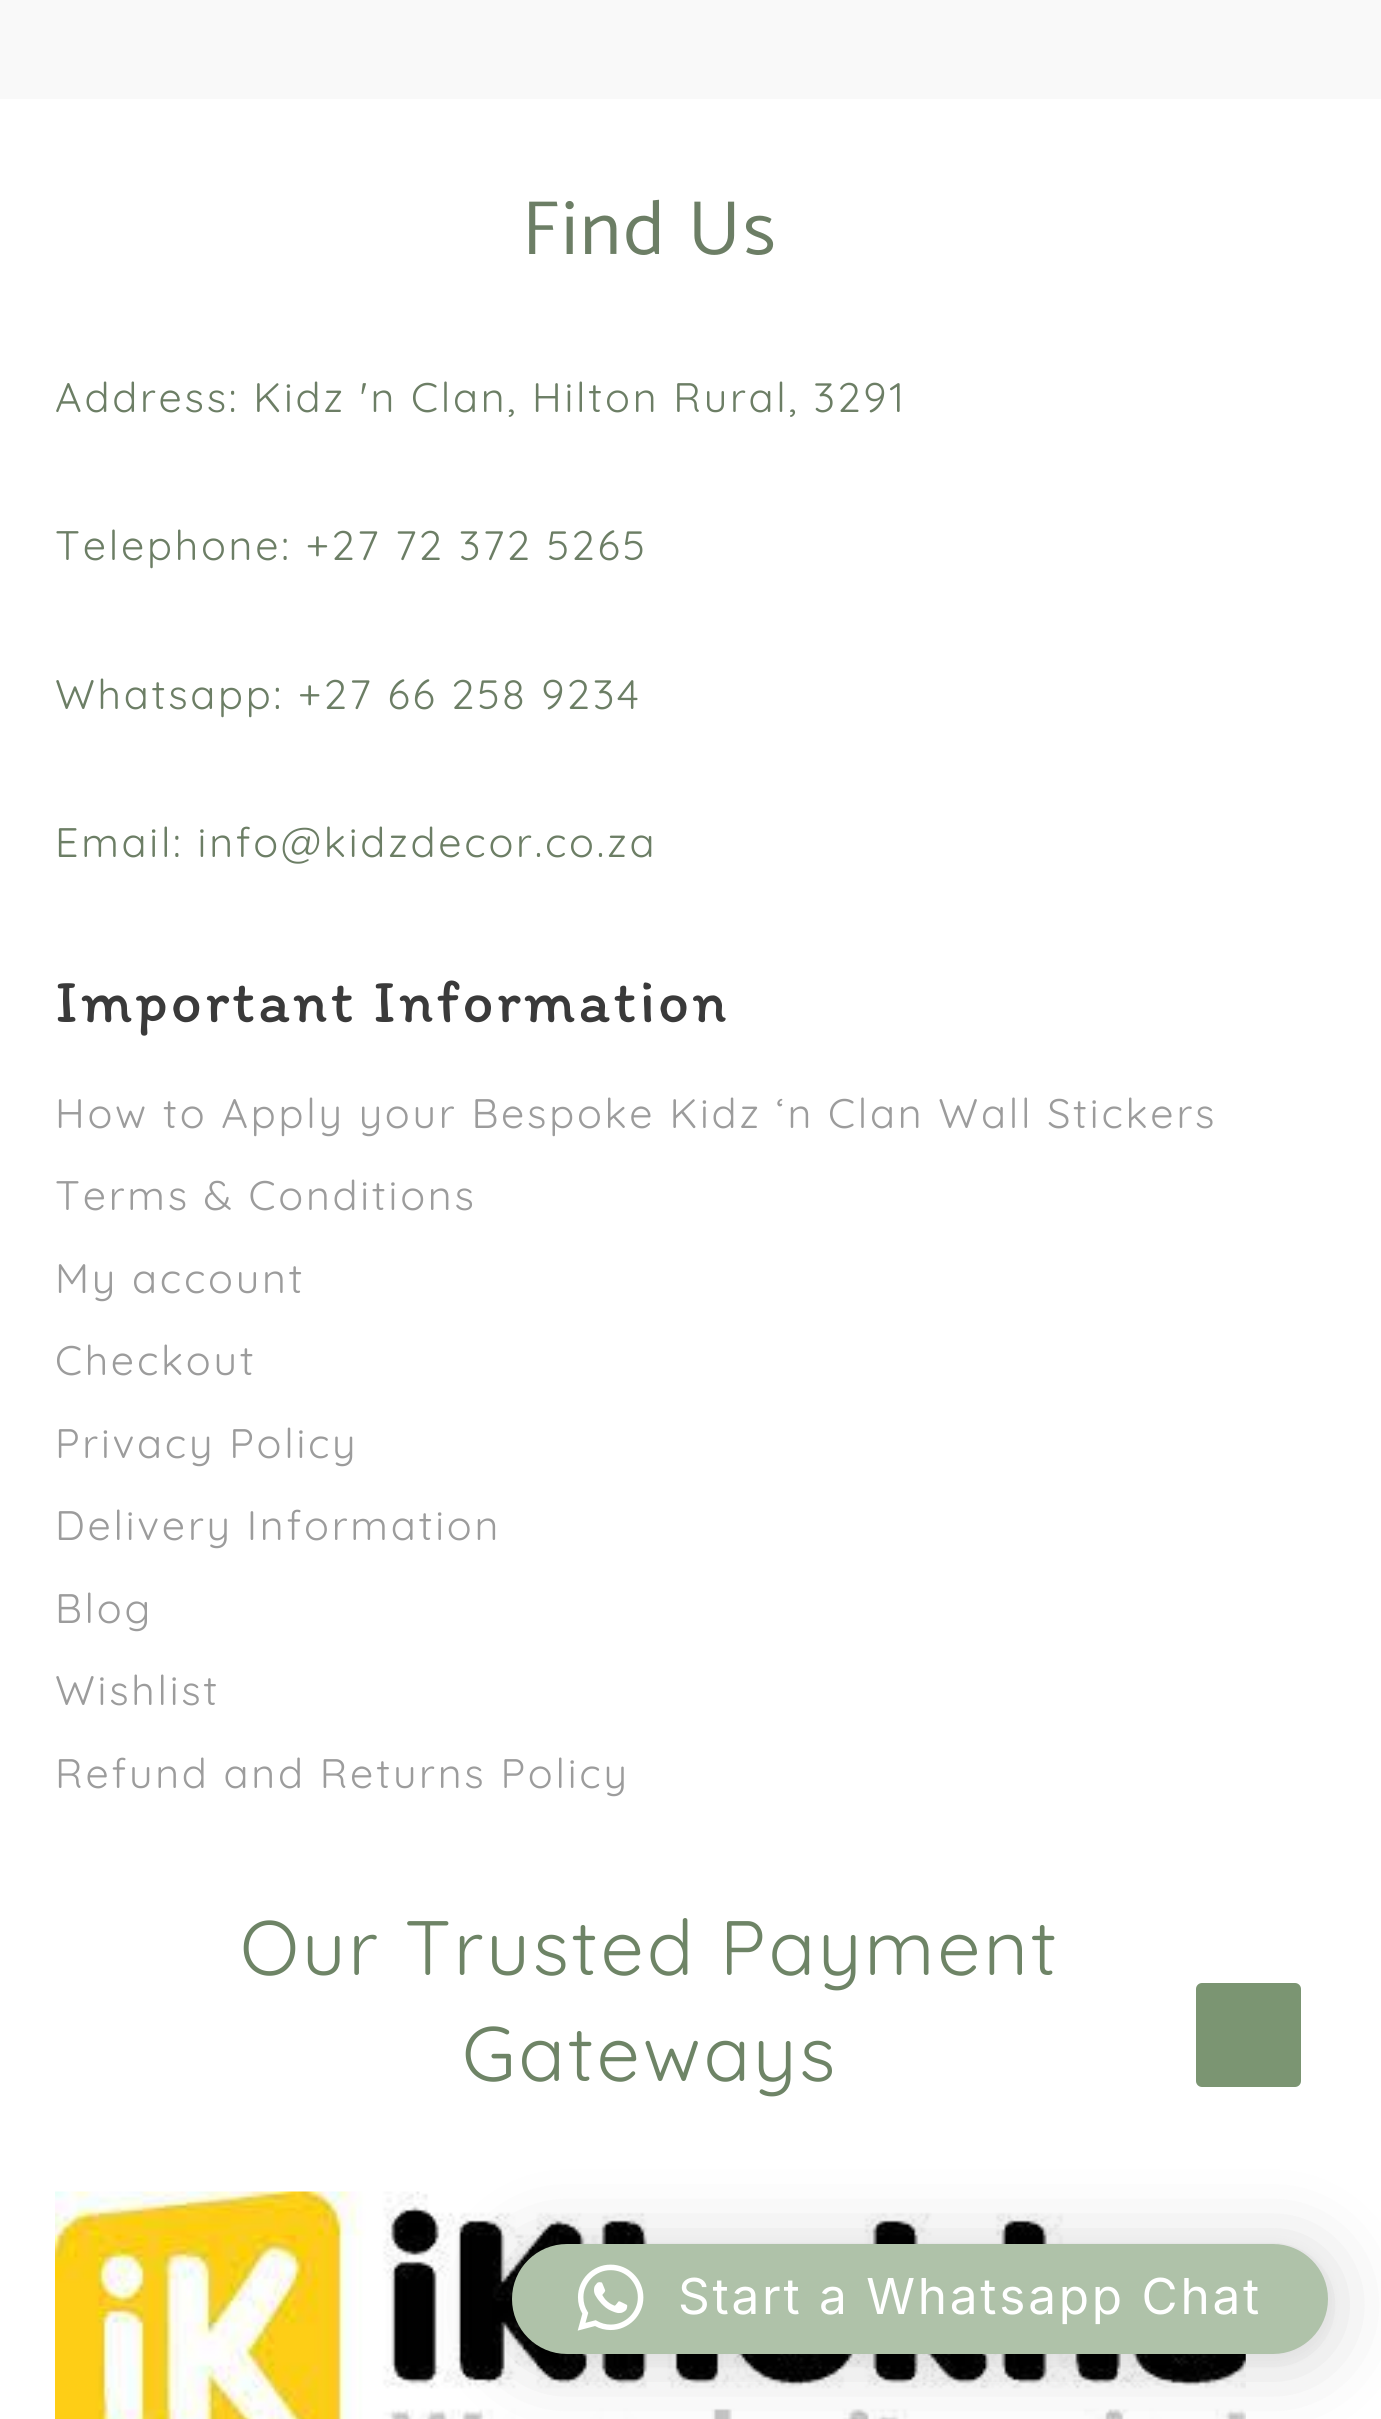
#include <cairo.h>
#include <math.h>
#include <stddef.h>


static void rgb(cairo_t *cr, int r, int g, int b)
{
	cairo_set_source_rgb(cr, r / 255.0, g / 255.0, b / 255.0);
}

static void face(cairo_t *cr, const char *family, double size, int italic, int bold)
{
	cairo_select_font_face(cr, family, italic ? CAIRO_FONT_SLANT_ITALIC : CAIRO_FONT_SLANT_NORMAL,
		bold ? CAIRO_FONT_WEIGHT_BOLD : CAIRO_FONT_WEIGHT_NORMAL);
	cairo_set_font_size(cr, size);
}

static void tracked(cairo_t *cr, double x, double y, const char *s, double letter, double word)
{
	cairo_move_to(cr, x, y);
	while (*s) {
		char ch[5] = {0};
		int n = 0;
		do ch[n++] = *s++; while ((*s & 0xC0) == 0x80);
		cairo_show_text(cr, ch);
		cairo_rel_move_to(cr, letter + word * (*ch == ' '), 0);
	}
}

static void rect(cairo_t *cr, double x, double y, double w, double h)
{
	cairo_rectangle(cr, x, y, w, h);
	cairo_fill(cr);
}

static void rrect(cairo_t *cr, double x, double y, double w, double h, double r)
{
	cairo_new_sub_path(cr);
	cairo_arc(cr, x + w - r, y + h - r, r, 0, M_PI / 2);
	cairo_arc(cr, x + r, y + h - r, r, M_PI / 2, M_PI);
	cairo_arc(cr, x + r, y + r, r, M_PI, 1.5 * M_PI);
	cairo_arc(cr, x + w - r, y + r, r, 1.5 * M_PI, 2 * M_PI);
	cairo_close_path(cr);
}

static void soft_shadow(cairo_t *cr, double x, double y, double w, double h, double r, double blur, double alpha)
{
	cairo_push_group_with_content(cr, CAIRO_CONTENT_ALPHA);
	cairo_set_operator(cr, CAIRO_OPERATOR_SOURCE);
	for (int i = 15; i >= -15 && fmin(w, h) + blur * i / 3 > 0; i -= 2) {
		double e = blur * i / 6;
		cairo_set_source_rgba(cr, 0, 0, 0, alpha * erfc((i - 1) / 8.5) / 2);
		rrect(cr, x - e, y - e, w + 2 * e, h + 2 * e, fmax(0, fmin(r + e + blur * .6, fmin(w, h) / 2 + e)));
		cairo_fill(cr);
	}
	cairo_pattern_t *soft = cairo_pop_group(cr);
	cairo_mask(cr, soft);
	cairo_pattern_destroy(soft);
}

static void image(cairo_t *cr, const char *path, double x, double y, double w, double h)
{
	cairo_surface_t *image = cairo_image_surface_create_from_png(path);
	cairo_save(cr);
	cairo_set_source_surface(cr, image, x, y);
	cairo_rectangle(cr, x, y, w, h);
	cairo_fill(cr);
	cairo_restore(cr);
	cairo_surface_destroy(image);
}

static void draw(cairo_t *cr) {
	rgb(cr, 249, 249, 249);
	cairo_paint(cr);
	rgb(cr, 255, 255, 255);
	rect(cr, 0, 99, 1381, 2320);
	face(cr, "Catamaran", 77, 0, 0);
	rgb(cr, 108, 126, 101);
	tracked(cr, 522, 254, "Find Us", 2.75, 0);
	face(cr, "Quicksand", 41.25, 0, 0);
	tracked(cr, 55, 412, "Address: Kidz 'n Clan, Hilton Rural, 3291", 2.75, 0);
	tracked(cr, 55, 560, "Telephone: +27 72 372 5265", 2.75, 0);
	tracked(cr, 55, 709, "Whatsapp: +27 66 258 9234", 2.75, 0);
	tracked(cr, 55, 857, "Email: info@kidzdecor.co.za", 2.75, 0);
	face(cr, "Itim", 61.6, 0, 0);
	rgb(cr, 58, 58, 58);
	tracked(cr, 55, 1022, "Important Information", 2.75, 0);
	face(cr, "Quicksand", 41.25, 0, 0);
	rgb(cr, 156, 156, 156);
	tracked(cr, 55, 1128, "How to Apply your Bespoke Kidz ‘n Clan Wall Stickers", 2.75, 0);
	tracked(cr, 55, 1210, "Terms & Conditions", 2.75, 0);
	tracked(cr, 55, 1293, "My account", 2.75, 0);
	tracked(cr, 55, 1375, "Checkout", 2.75, 0);
	tracked(cr, 55, 1458, "Privacy Policy", 2.75, 0);
	tracked(cr, 55, 1540, "Delivery Information", 2.75, 0);
	tracked(cr, 55, 1623, "Blog", 2.75, 0);
	tracked(cr, 55, 1705, "Wishlist", 2.75, 0);
	tracked(cr, 55, 1788, "Refund and Returns Policy", 2.75, 0);
	face(cr, "Quicksand", 77, 0, 0);
	rgb(cr, 110, 132, 102);
	tracked(cr, 240, 1975, "Our Trusted Payment", 2.75, 0);
	tracked(cr, 462, 2081, "Gateways", 2.75, 0);
	image(cr, "image0.png", 55, 2191, 1191, 228);
	rgb(cr, 0, 0, 0);
	soft_shadow(cr, 512, 2250, 816, 110, 55, 44, 0.16);
	soft_shadow(cr, 512, 2247, 816, 110, 55, 8, 0.06);
	rgb(cr, 175, 194, 169);
	rrect(cr, 512, 2244, 816, 110, 55);
	cairo_fill(cr);
	image(cr, "image1.png", 577, 2264, 67, 67);
	face(cr, "Inter", 49.5, 0, 0);
	rgb(cr, 255, 255, 255);
	tracked(cr, 678, 2314, "Start a Whatsapp Chat", 2.75, 0);
	rgb(cr, 123, 149, 114);
	rrect(cr, 1196, 1983, 105, 104, 6);
	cairo_fill(cr);
}

int main(void) {
	cairo_surface_t *surface = cairo_image_surface_create(CAIRO_FORMAT_RGB24, 1381, 2419);
	cairo_t *cr = cairo_create(surface);
	cairo_font_options_t *options = cairo_font_options_create();
	cairo_font_options_set_hint_metrics(options, CAIRO_HINT_METRICS_OFF);
	cairo_font_options_set_hint_style(options, CAIRO_HINT_STYLE_NONE);
	cairo_set_font_options(cr, options);
	cairo_set_miter_limit(cr, 4);
	draw(cr);
	cairo_surface_write_to_png(surface, "render.png");
	cairo_font_options_destroy(options);
	cairo_destroy(cr);
	cairo_surface_destroy(surface);
	return 0;
}
